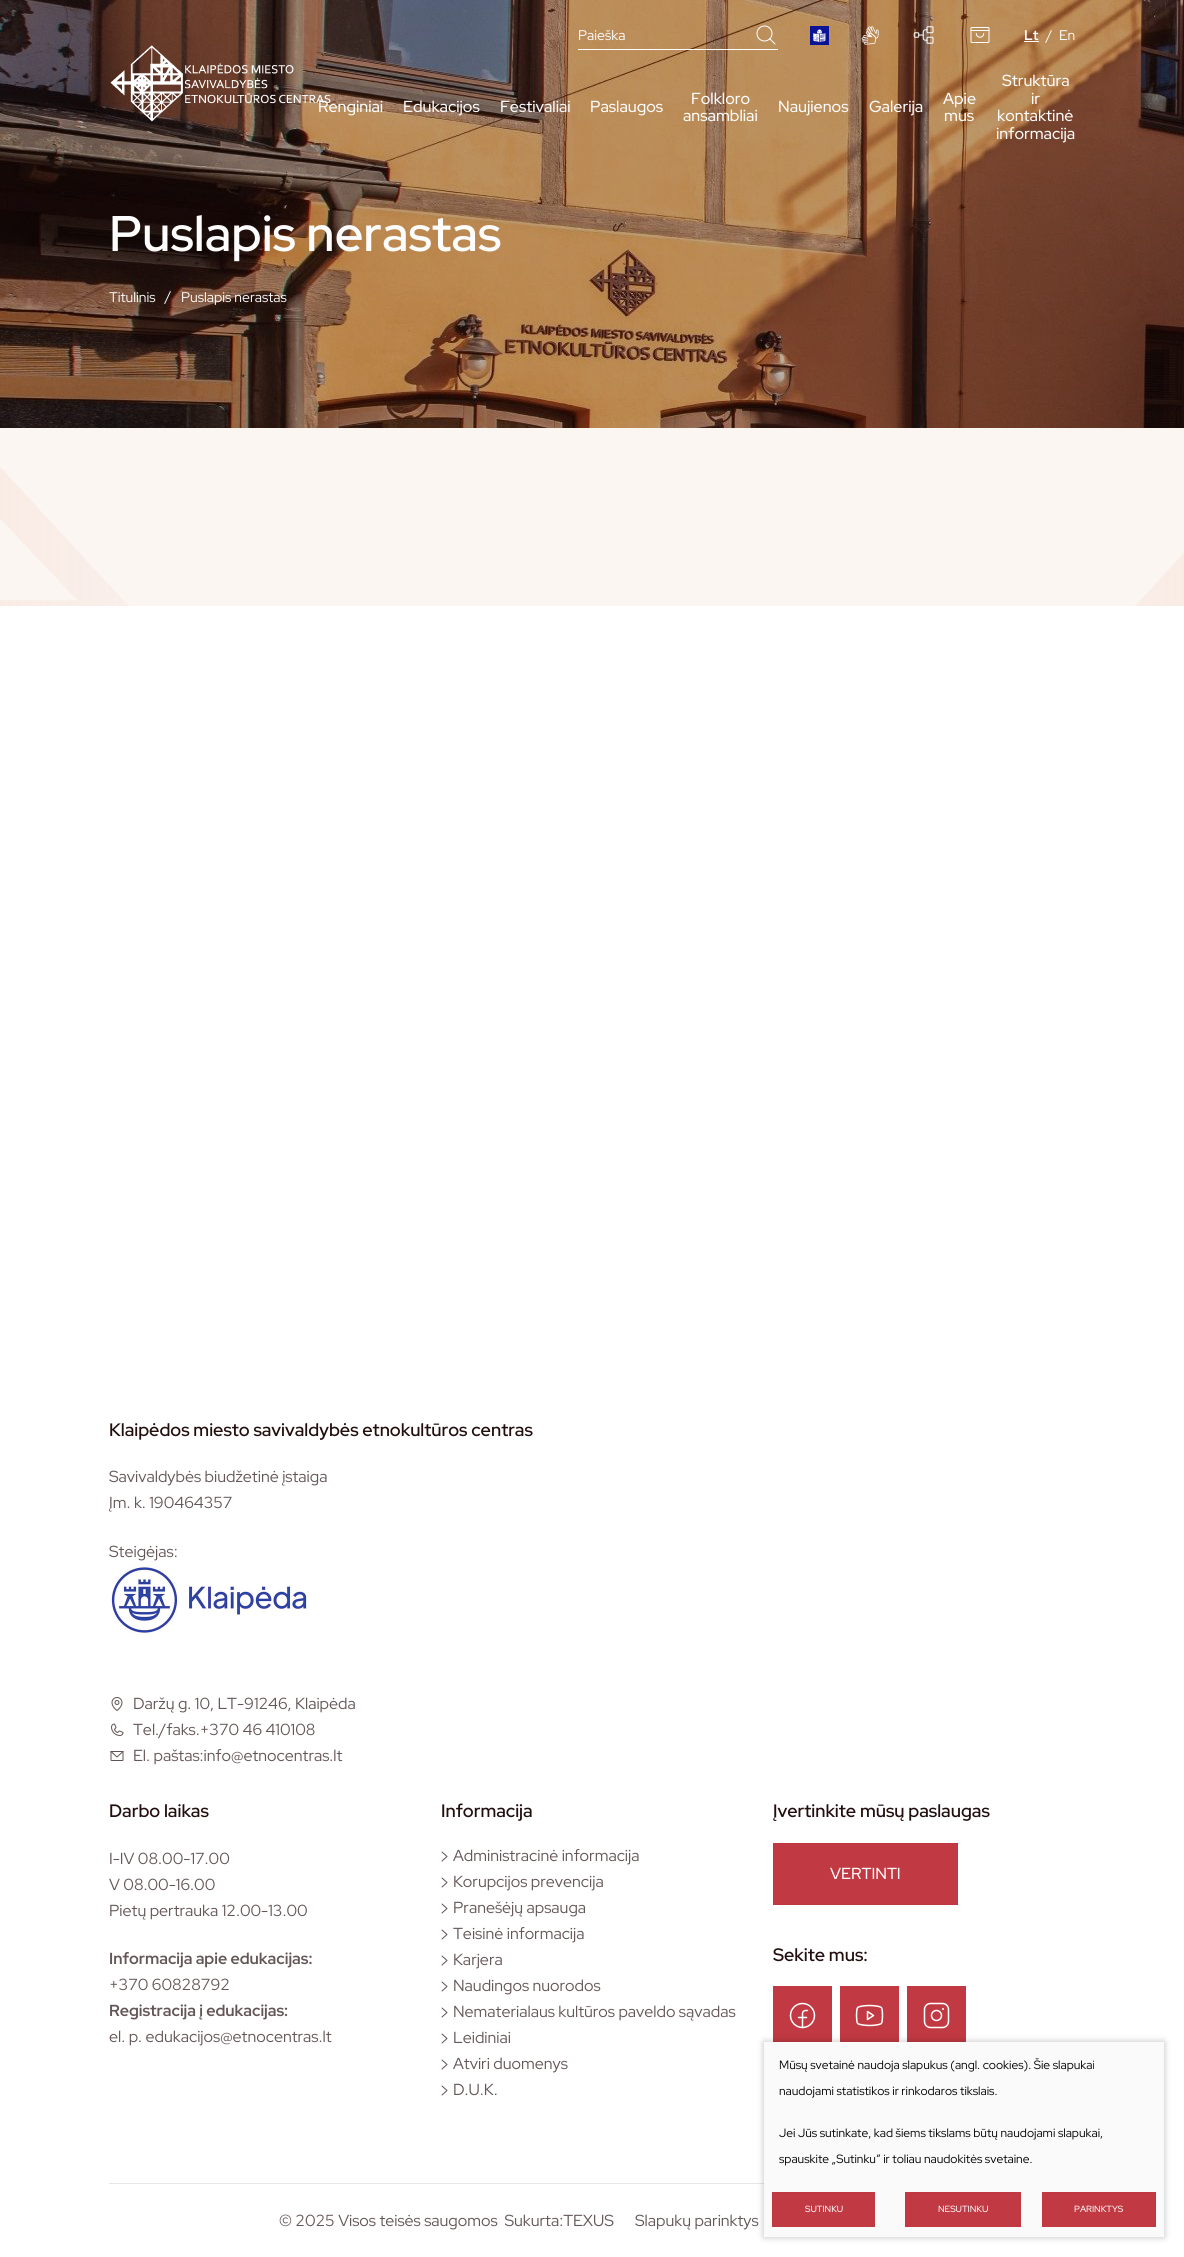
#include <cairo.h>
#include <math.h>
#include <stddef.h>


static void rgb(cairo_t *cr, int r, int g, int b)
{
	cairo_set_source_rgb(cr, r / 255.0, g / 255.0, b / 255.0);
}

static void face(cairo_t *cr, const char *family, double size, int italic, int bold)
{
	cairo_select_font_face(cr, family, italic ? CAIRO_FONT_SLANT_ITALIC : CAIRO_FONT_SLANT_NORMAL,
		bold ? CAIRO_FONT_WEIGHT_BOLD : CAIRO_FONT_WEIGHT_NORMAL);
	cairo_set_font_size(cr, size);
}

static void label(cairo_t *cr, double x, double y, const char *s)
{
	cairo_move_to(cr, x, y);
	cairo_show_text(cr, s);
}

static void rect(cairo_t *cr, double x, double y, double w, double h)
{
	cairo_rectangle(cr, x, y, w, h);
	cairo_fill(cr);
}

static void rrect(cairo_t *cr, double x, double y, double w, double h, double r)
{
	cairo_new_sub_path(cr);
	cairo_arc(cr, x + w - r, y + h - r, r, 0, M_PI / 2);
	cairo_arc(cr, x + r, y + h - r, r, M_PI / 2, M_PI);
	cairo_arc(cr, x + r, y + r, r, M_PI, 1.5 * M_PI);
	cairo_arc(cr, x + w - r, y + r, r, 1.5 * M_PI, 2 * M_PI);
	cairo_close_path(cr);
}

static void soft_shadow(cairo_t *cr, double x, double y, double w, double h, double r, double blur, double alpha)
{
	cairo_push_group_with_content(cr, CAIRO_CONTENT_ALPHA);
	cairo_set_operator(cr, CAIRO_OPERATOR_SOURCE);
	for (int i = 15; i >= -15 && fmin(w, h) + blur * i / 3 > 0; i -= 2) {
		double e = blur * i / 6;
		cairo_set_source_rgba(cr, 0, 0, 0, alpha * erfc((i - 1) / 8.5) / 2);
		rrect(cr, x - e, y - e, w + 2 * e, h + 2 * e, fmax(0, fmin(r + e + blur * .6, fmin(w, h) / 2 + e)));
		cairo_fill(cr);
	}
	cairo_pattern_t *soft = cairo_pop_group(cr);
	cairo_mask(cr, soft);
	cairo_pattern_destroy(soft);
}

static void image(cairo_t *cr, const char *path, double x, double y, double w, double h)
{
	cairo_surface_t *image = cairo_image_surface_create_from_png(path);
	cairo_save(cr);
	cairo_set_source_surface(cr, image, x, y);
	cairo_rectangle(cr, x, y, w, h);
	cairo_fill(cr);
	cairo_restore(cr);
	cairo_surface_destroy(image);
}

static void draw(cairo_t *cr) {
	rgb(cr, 255, 255, 255);
	cairo_paint(cr);
	image(cr, "image6.png", 0, 0, 1184, 428);
	face(cr, "Red Hat Display Medium", 16, 0, 0);
	rgb(cr, 254, 253, 253);
	label(cr, 318, 112, "Renginiai");
	image(cr, "image0.png", 110, 45, 221, 77);
	cairo_set_source_rgba(cr, 1, 1, 1, 0.99);
	rect(cr, 578, 49, 200, 1);
	face(cr, "Red Hat Display", 14, 0, 0);
	rgb(cr, 254, 253, 253);
	label(cr, 578, 40, "Paieška");
	image(cr, "image1.png", 756, 25, 20, 20);
	image(cr, "image2.png", 810, 26, 19, 19);
	image(cr, "image3.png", 861, 26, 18, 19);
	image(cr, "image4.png", 913, 26, 21, 18);
	image(cr, "image5.png", 970, 27, 20, 16);
	face(cr, "Red Hat Display", 14, 0, 1);
	label(cr, 1024, 40, "Lt");
	cairo_set_source_rgba(cr, 1, 1, 1, 0.99);
	rect(cr, 1024, 41, 15, 1);
	face(cr, "Red Hat Display", 14, 0, 0);
	rgb(cr, 254, 253, 253);
	label(cr, 1046, 40, "/");
	label(cr, 1059, 40, "En");
	face(cr, "Red Hat Display Medium", 16, 0, 0);
	label(cr, 403, 112, "Edukacijos");
	label(cr, 500, 112, "Festivaliai");
	label(cr, 590, 112, "Paslaugos");
	label(cr, 691, 104, "Folkloro");
	label(cr, 683, 121, "ansambliai");
	label(cr, 778, 112, "Naujienos");
	label(cr, 869, 112, "Galerija");
	label(cr, 943, 104, "Apie");
	label(cr, 944, 121, "mus");
	label(cr, 1002, 86, "Struktūra");
	label(cr, 1031, 104, "ir");
	label(cr, 997, 121, "kontaktinė");
	label(cr, 996, 139, "informacija");
	face(cr, "Red Hat Display SemiBold", 50, 0, 0);
	label(cr, 109, 251, "Puslapis nerastas");
	face(cr, "Red Hat Display", 14, 0, 0);
	label(cr, 109, 302, "Titulinis");
	label(cr, 165, 301, "/");
	label(cr, 181, 302, "Puslapis nerastas");
	rgb(cr, 252, 246, 243);
	rect(cr, 0, 428, 1184, 178);
	image(cr, "image7.png", 0, 467, 129, 139);
	image(cr, "image8.png", 1135, 553, 49, 53);
	face(cr, "Red Hat Display SemiBold", 18, 0, 0);
	rgb(cr, 34, 14, 13);
	label(cr, 109, 1436, "Klaipėdos miesto savivaldybės etnokultūros centras");
	face(cr, "Red Hat Display", 16, 0, 0);
	rgb(cr, 100, 86, 86);
	label(cr, 109, 1482, "Savivaldybės biudžetinė įstaiga");
	label(cr, 109, 1508, "Įm. k. 190464357");
	label(cr, 109, 1557, "Steigėjas:");
	image(cr, "image9.png", 110, 1565, 199, 68);
	image(cr, "image10.png", 111, 1697, 12, 14);
	label(cr, 133, 1709, "Daržų g. 10, LT-91246, Klaipėda");
	image(cr, "image11.png", 111, 1723, 13, 13);
	label(cr, 133, 1735, "Tel./faks.+370 46 410108");
	image(cr, "image12.png", 110, 1751, 14, 10);
	label(cr, 133, 1761, "El. paštas:info@etnocentras.lt");
	face(cr, "Red Hat Display SemiBold", 18, 0, 0);
	rgb(cr, 34, 14, 13);
	label(cr, 109, 1817, "Darbo laikas");
	face(cr, "Red Hat Display", 16, 0, 0);
	rgb(cr, 100, 86, 86);
	label(cr, 109, 1864, "I-IV 08.00-17.00");
	label(cr, 109, 1890, "V 08.00-16.00");
	label(cr, 109, 1916, "Pietų pertrauka 12.00-13.00");
	face(cr, "Red Hat Display", 16, 0, 1);
	label(cr, 109, 1964, "Informacija apie edukacijas:");
	face(cr, "Red Hat Display", 16, 0, 0);
	label(cr, 109, 1990, "+370 60828792");
	face(cr, "Red Hat Display", 16, 0, 1);
	label(cr, 109, 2016, "Registracija į edukacijas:");
	face(cr, "Red Hat Display", 16, 0, 0);
	label(cr, 109, 2042, "el. p. edukacijos@etnocentras.lt");
	face(cr, "Red Hat Display SemiBold", 18, 0, 0);
	rgb(cr, 34, 14, 13);
	label(cr, 441, 1817, "Informacija");
	cairo_new_path(cr);
	cairo_move_to(cr, 442, 1852);
	cairo_line_to(cr, 447, 1856.5);
	cairo_line_to(cr, 442, 1861);
	rgb(cr, 98, 84, 84);
	cairo_set_line_width(cr, 1);
	cairo_set_line_cap(cr, CAIRO_LINE_CAP_ROUND);
	cairo_set_line_join(cr, CAIRO_LINE_JOIN_ROUND);
	cairo_stroke(cr);
	face(cr, "Red Hat Display", 16, 0, 0);
	rgb(cr, 100, 86, 86);
	label(cr, 453, 1861, "Administracinė informacija");
	cairo_new_path(cr);
	cairo_move_to(cr, 442, 1878);
	cairo_line_to(cr, 447, 1882.5);
	cairo_line_to(cr, 442, 1887);
	rgb(cr, 98, 84, 84);
	cairo_stroke(cr);
	rgb(cr, 100, 86, 86);
	label(cr, 453, 1887, "Korupcijos prevencija");
	cairo_new_path(cr);
	cairo_move_to(cr, 442, 1904);
	cairo_line_to(cr, 447, 1908.5);
	cairo_line_to(cr, 442, 1913);
	rgb(cr, 98, 84, 84);
	cairo_stroke(cr);
	rgb(cr, 100, 86, 86);
	label(cr, 453, 1913, "Pranešėjų apsauga");
	cairo_new_path(cr);
	cairo_move_to(cr, 442, 1930);
	cairo_line_to(cr, 447, 1934.5);
	cairo_line_to(cr, 442, 1939);
	rgb(cr, 98, 84, 84);
	cairo_stroke(cr);
	rgb(cr, 100, 86, 86);
	label(cr, 453, 1939, "Teisinė informacija");
	cairo_new_path(cr);
	cairo_move_to(cr, 442, 1956);
	cairo_line_to(cr, 447, 1960.5);
	cairo_line_to(cr, 442, 1965);
	rgb(cr, 98, 84, 84);
	cairo_stroke(cr);
	rgb(cr, 100, 86, 86);
	label(cr, 453, 1965, "Karjera");
	cairo_new_path(cr);
	cairo_move_to(cr, 442, 1982);
	cairo_line_to(cr, 447, 1986.5);
	cairo_line_to(cr, 442, 1991);
	rgb(cr, 98, 84, 84);
	cairo_stroke(cr);
	rgb(cr, 100, 86, 86);
	label(cr, 453, 1991, "Naudingos nuorodos");
	cairo_new_path(cr);
	cairo_move_to(cr, 442, 2008);
	cairo_line_to(cr, 447, 2012.5);
	cairo_line_to(cr, 442, 2017);
	rgb(cr, 98, 84, 84);
	cairo_stroke(cr);
	rgb(cr, 100, 86, 86);
	label(cr, 453, 2017, "Nematerialaus kultūros paveldo sąvadas");
	cairo_new_path(cr);
	cairo_move_to(cr, 442, 2034);
	cairo_line_to(cr, 447, 2038.5);
	cairo_line_to(cr, 442, 2043);
	rgb(cr, 98, 84, 84);
	cairo_stroke(cr);
	rgb(cr, 100, 86, 86);
	label(cr, 453, 2043, "Leidiniai");
	cairo_new_path(cr);
	cairo_move_to(cr, 442, 2060);
	cairo_line_to(cr, 447, 2064.5);
	cairo_line_to(cr, 442, 2069);
	rgb(cr, 98, 84, 84);
	cairo_stroke(cr);
	rgb(cr, 100, 86, 86);
	label(cr, 453, 2069, "Atviri duomenys");
	cairo_new_path(cr);
	cairo_move_to(cr, 442, 2086);
	cairo_line_to(cr, 447, 2090.5);
	cairo_line_to(cr, 442, 2095);
	rgb(cr, 98, 84, 84);
	cairo_stroke(cr);
	rgb(cr, 100, 86, 86);
	label(cr, 453, 2095, "D.U.K.");
	face(cr, "Red Hat Display SemiBold", 18, 0, 0);
	rgb(cr, 34, 14, 13);
	label(cr, 773, 1817, "Įvertinkite mūsų paslaugas");
	rgb(cr, 193, 57, 66);
	cairo_rectangle(cr, 773.5, 1843.5, 184, 61);
	cairo_fill_preserve(cr);
	rgb(cr, 192, 55, 64);
	cairo_set_line_cap(cr, CAIRO_LINE_CAP_BUTT);
	cairo_set_line_join(cr, CAIRO_LINE_JOIN_MITER);
	cairo_stroke(cr);
	face(cr, "Red Hat Display Medium", 16, 0, 0);
	rgb(cr, 254, 253, 253);
	label(cr, 830, 1879, "VERTINTI");
	face(cr, "Red Hat Display SemiBold", 18, 0, 0);
	rgb(cr, 34, 14, 13);
	label(cr, 773, 1961, "Sekite mus:");
	rgb(cr, 193, 57, 66);
	rect(cr, 773, 1986, 59, 56);
	image(cr, "image13.png", 789, 2002, 27, 27);
	rect(cr, 840, 1986, 59, 56);
	image(cr, "image14.png", 855, 2004, 29, 23);
	rect(cr, 907, 1986, 59, 56);
	image(cr, "image15.png", 923, 2002, 27, 27);
	rgb(cr, 232, 230, 230);
	rect(cr, 109, 2183, 655, 1);
	face(cr, "Red Hat Display", 16, 0, 0);
	rgb(cr, 100, 86, 86);
	label(cr, 279, 2226, "© 2025 Visos teisės saugomos  Sukurta:TEXUS");
	label(cr, 635, 2226, "Slapukų parinktys");
	rgb(cr, 0, 0, 0);
	soft_shadow(cr, 764, 2042, 400, 195, 0, 3.5, 0.25);
	rgb(cr, 250, 250, 250);
	rect(cr, 764, 2042, 400, 195);
	face(cr, "Red Hat Display", 12, 0, 0);
	rgb(cr, 0, 0, 0);
	label(cr, 779, 2069, "Mūsų svetainė naudoja slapukus (angl. cookies). Šie slapukai");
	label(cr, 779, 2095, "naudojami statistikos ir rinkodaros tikslais.");
	label(cr, 779, 2137, "Jei Jūs sutinkate, kad šiems tikslams būtų naudojami slapukai,");
	label(cr, 779, 2163, "spauskite „Sutinku“ ir toliau naudokitės svetaine.");
	rgb(cr, 193, 57, 66);
	cairo_rectangle(cr, 772.5, 2192.5, 102, 34);
	cairo_fill_preserve(cr);
	rgb(cr, 192, 55, 64);
	cairo_stroke(cr);
	face(cr, "Red Hat Display Medium", 9, 0, 0);
	rgb(cr, 254, 253, 253);
	label(cr, 805, 2212, "SUTINKU");
	rgb(cr, 193, 57, 66);
	cairo_rectangle(cr, 905.5, 2192.5, 115, 34);
	cairo_fill_preserve(cr);
	rgb(cr, 192, 55, 64);
	cairo_stroke(cr);
	rgb(cr, 254, 253, 253);
	label(cr, 938, 2212, "NESUTINKU");
	rgb(cr, 193, 57, 66);
	cairo_rectangle(cr, 1042.5, 2192.5, 113, 34);
	cairo_fill_preserve(cr);
	rgb(cr, 192, 55, 64);
	cairo_stroke(cr);
	rgb(cr, 254, 253, 253);
	label(cr, 1074, 2212, "PARINKTYS");
}

int main(void) {
	cairo_surface_t *surface = cairo_image_surface_create(CAIRO_FORMAT_RGB24, 1184, 2257);
	cairo_t *cr = cairo_create(surface);
	cairo_font_options_t *options = cairo_font_options_create();
	cairo_font_options_set_hint_metrics(options, CAIRO_HINT_METRICS_OFF);
	cairo_font_options_set_hint_style(options, CAIRO_HINT_STYLE_NONE);
	cairo_set_font_options(cr, options);
	cairo_set_miter_limit(cr, 4);
	draw(cr);
	cairo_surface_write_to_png(surface, "render.png");
	cairo_font_options_destroy(options);
	cairo_destroy(cr);
	cairo_surface_destroy(surface);
	return 0;
}
